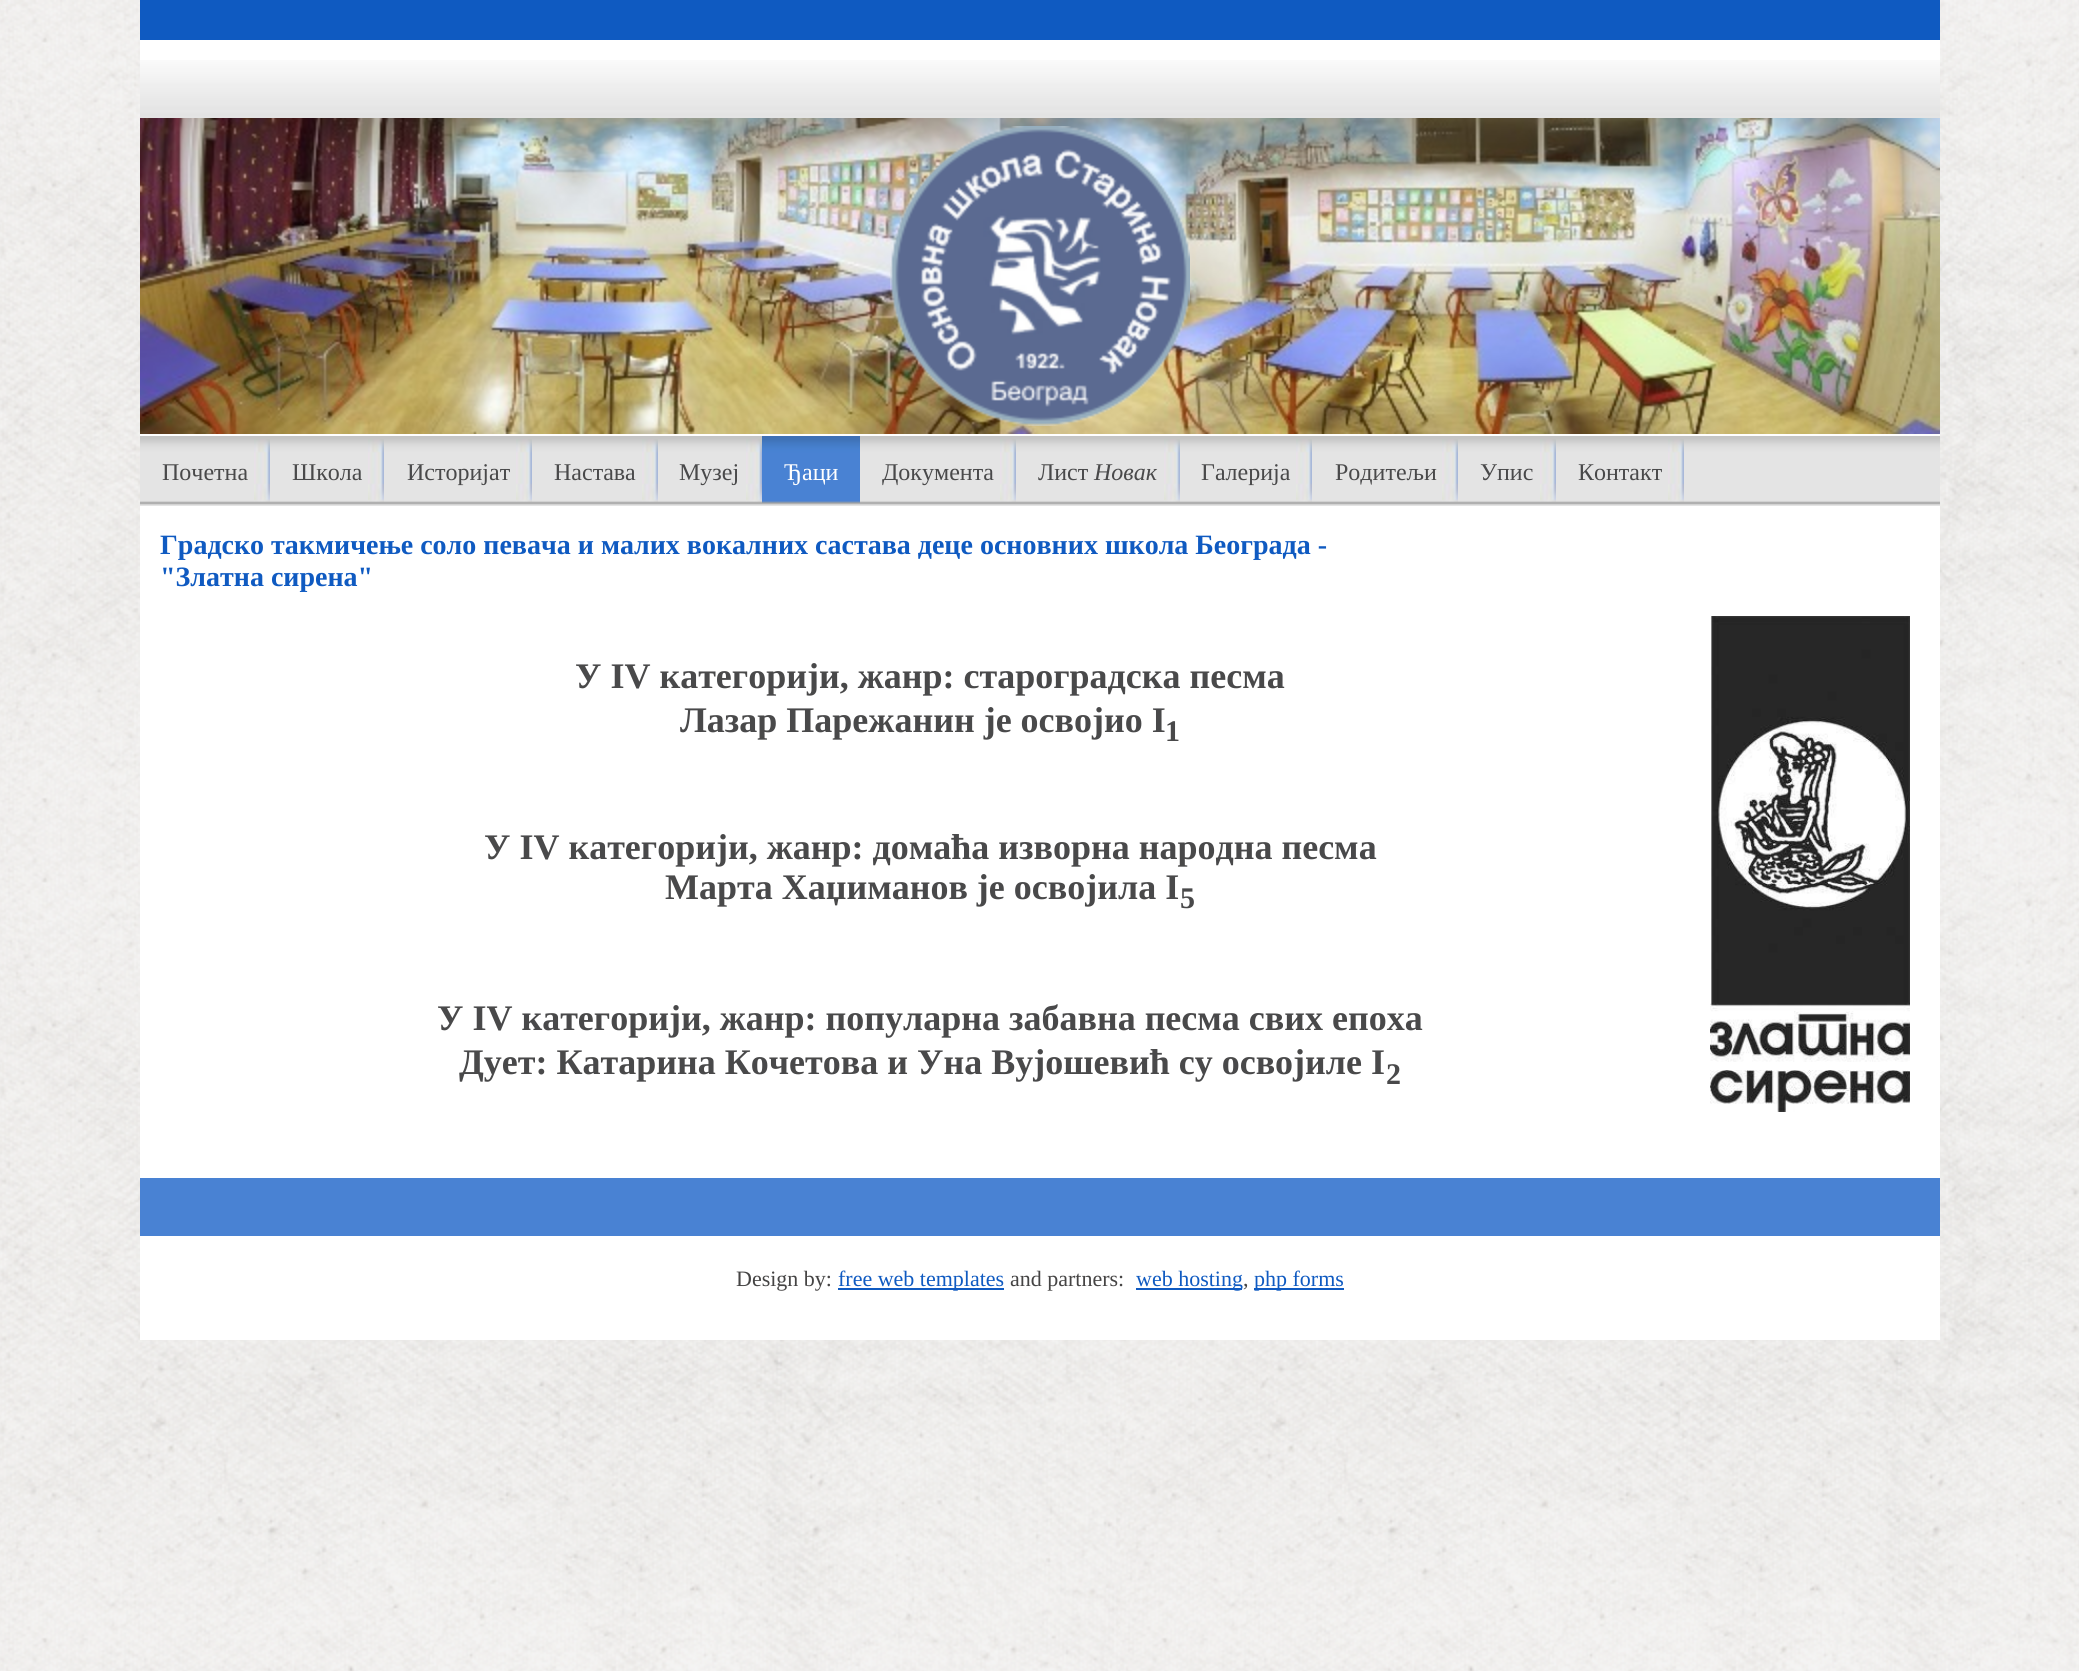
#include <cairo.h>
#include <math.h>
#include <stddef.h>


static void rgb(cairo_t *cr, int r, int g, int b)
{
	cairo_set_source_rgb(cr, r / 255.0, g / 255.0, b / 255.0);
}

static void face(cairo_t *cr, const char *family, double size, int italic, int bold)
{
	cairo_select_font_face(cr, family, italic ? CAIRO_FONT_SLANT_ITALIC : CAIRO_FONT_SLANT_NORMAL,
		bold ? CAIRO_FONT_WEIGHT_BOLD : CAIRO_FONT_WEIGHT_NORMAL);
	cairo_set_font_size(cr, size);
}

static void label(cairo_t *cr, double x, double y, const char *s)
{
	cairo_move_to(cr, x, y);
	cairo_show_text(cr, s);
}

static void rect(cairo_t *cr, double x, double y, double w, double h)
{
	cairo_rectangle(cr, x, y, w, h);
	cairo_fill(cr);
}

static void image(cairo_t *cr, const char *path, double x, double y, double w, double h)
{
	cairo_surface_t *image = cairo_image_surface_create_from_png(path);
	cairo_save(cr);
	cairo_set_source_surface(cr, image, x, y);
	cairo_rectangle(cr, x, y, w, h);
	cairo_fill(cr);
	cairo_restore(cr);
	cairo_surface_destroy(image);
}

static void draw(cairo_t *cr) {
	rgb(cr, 255, 255, 255);
	cairo_paint(cr);
	image(cr, "image0.png", 0, 0, 2079, 1671);
	rgb(cr, 255, 255, 255);
	rect(cr, 140, 40, 1800, 1300);
	image(cr, "image1.png", 140, 60, 1800, 58);
	rgb(cr, 15, 90, 193);
	rect(cr, 140, 0, 1800, 40);
	image(cr, "image2.png", 140, 118, 1800, 316);
	image(cr, "image3.png", 890, 126, 300, 300);
	image(cr, "image4.png", 140, 436, 1800, 70);
	image(cr, "image5.png", 254, 439, 16, 63);
	face(cr, "Liberation Serif", 24, 0, 0);
	rgb(cr, 73, 73, 74);
	label(cr, 162, 480, "Почетна");
	image(cr, "image5.png", 368, 439, 16, 63);
	label(cr, 292, 480, "Школа");
	image(cr, "image5.png", 516, 439, 16, 63);
	label(cr, 407, 480, "Историјат");
	image(cr, "image5.png", 642, 439, 16, 63);
	label(cr, 554, 480, "Настава");
	image(cr, "image5.png", 746, 439, 16, 63);
	label(cr, 679, 480, "Музеј");
	image(cr, "image6.png", 762, 436, 98, 67);
	rgb(cr, 255, 255, 255);
	label(cr, 784, 480, "Ђаци");
	image(cr, "image5.png", 1000, 439, 16, 63);
	rgb(cr, 73, 73, 74);
	label(cr, 882, 480, "Документа");
	image(cr, "image5.png", 1164, 439, 16, 63);
	label(cr, 1038, 480, "Лист");
	face(cr, "Liberation Serif", 24, 1, 0);
	label(cr, 1094, 480, "Новак");
	image(cr, "image5.png", 1296, 439, 16, 63);
	face(cr, "Liberation Serif", 24, 0, 0);
	label(cr, 1201, 480, "Галерија");
	image(cr, "image5.png", 1442, 439, 16, 63);
	label(cr, 1335, 480, "Родитељи");
	image(cr, "image5.png", 1540, 439, 16, 63);
	label(cr, 1480, 480, "Упис");
	image(cr, "image5.png", 1668, 439, 16, 63);
	label(cr, 1578, 480, "Контакт");
	face(cr, "Liberation Serif", 28, 0, 1);
	rgb(cr, 15, 90, 193);
	label(cr, 160, 554, "Градско такмичење соло певача и малих вокалних састава деце основних школа Београда -");
	label(cr, 160, 586, "\"Златна сирена\"");
	face(cr, "Liberation Serif", 36, 0, 1);
	rgb(cr, 73, 73, 74);
	label(cr, 575, 688, "У IV категорији, жанр: староградска песма");
	image(cr, "image7.png", 1710, 616, 200, 496);
	label(cr, 680, 732, "Лазар Парежанин је освојио I");
	face(cr, "Liberation Serif", 30, 0, 1);
	label(cr, 1165, 741, "1");
	face(cr, "Liberation Serif", 36, 0, 1);
	label(cr, 484, 859, "У IV категорији, жанр: домаћа изворна народна песма");
	label(cr, 665, 899, "Марта Хаџиманов је освојила I");
	face(cr, "Liberation Serif", 30, 0, 1);
	label(cr, 1180, 908, "5");
	face(cr, "Liberation Serif", 36, 0, 1);
	label(cr, 437, 1030, "У IV категорији, жанр: популарна забавна песма свих епоха");
	label(cr, 459, 1074, "Дует: Катарина Кочетова и Уна Вујошевић су освојиле I");
	face(cr, "Liberation Serif", 30, 0, 1);
	label(cr, 1386, 1084, "2");
	rgb(cr, 73, 130, 211);
	rect(cr, 140, 1178, 1800, 58);
	face(cr, "Liberation Serif", 22, 0, 0);
	rgb(cr, 69, 68, 68);
	label(cr, 736, 1286, "Design by:");
	rgb(cr, 15, 90, 193);
	rect(cr, 838, 1288, 166, 2);
	label(cr, 838, 1286, "free web templates");
	rgb(cr, 69, 68, 68);
	label(cr, 1010, 1286, "and partners:");
	rgb(cr, 15, 90, 193);
	rect(cr, 1136, 1288, 106, 2);
	label(cr, 1136, 1286, "web hosting");
	rgb(cr, 69, 68, 68);
	label(cr, 1243, 1286, ",");
	rgb(cr, 15, 90, 193);
	rect(cr, 1254, 1288, 90, 2);
	label(cr, 1254, 1286, "php forms");
}

int main(void) {
	cairo_surface_t *surface = cairo_image_surface_create(CAIRO_FORMAT_RGB24, 2079, 1671);
	cairo_t *cr = cairo_create(surface);
	cairo_font_options_t *options = cairo_font_options_create();
	cairo_font_options_set_hint_metrics(options, CAIRO_HINT_METRICS_OFF);
	cairo_font_options_set_hint_style(options, CAIRO_HINT_STYLE_NONE);
	cairo_set_font_options(cr, options);
	cairo_set_miter_limit(cr, 4);
	draw(cr);
	cairo_surface_write_to_png(surface, "render.png");
	cairo_font_options_destroy(options);
	cairo_destroy(cr);
	cairo_surface_destroy(surface);
	return 0;
}
